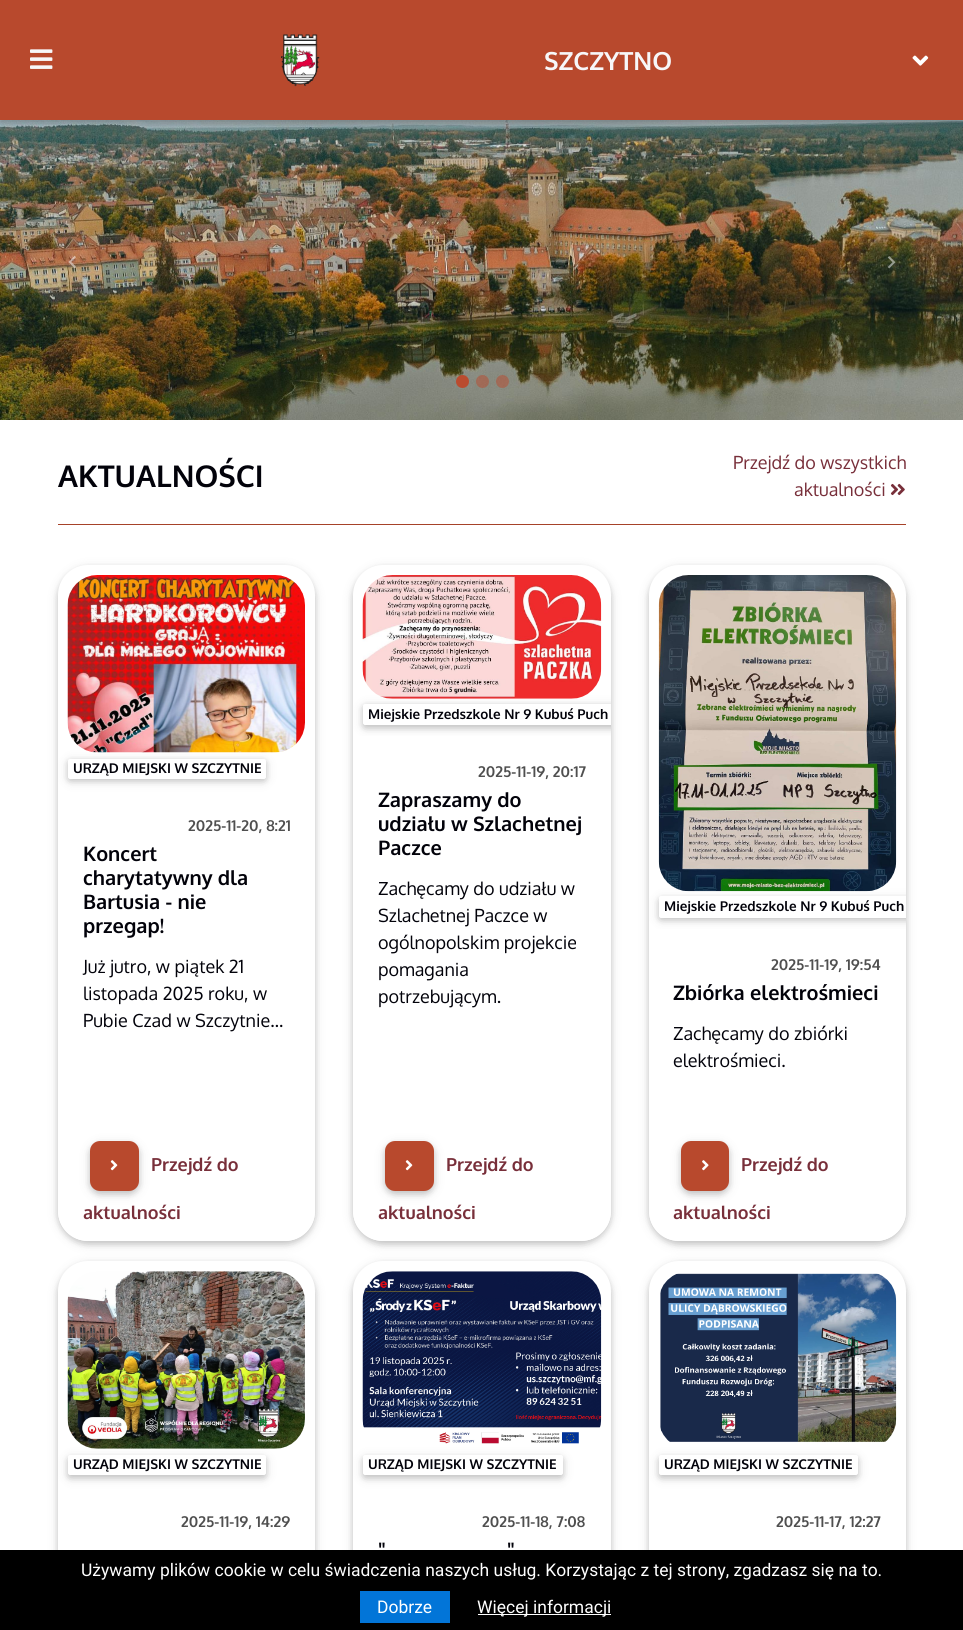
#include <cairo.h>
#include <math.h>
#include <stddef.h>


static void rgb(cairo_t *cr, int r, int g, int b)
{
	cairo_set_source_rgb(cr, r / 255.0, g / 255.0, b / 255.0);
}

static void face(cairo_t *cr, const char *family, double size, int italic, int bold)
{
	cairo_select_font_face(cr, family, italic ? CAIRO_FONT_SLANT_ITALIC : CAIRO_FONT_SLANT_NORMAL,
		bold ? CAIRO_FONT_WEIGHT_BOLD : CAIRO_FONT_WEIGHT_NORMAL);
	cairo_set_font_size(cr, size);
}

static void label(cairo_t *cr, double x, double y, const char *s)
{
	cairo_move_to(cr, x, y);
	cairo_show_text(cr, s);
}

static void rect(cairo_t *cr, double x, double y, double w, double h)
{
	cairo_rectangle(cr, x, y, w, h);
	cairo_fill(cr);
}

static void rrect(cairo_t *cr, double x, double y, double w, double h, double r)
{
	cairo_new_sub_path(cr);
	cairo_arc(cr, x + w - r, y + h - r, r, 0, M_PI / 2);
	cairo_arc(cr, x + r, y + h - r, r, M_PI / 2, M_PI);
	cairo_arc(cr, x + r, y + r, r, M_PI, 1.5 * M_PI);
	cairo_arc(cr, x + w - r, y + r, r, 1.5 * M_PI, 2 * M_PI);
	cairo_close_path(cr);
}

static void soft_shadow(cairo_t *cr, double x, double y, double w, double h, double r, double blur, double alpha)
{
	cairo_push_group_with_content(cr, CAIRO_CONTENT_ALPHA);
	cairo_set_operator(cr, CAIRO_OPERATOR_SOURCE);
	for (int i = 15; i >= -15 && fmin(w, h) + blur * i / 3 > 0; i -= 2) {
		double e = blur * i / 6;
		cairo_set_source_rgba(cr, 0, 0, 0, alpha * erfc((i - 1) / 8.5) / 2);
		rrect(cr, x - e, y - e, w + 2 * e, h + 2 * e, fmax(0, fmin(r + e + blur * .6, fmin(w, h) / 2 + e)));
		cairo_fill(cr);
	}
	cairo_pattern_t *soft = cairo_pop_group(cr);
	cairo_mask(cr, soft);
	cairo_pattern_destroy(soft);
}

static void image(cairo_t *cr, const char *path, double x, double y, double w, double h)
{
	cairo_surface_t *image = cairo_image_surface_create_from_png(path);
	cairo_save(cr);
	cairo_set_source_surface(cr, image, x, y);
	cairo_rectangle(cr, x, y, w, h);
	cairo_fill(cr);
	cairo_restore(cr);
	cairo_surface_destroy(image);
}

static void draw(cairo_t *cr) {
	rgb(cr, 255, 255, 255);
	cairo_paint(cr);
	image(cr, "image3.png", 0, 120, 963, 300);
	rgb(cr, 0, 0, 0);
	soft_shadow(cr, 0, 3, 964, 120, 0, 6, 0.12);
	soft_shadow(cr, 0, 3, 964, 120, 0, 3, 0.16);
	rgb(cr, 184, 73, 45);
	rect(cr, 0, 0, 963, 120);
	image(cr, "image0.png", 30, 49, 23, 20);
	image(cr, "image1.png", 280, 34, 40, 53);
	face(cr, "Oxygen", 25, 0, 1);
	rgb(cr, 247, 247, 249);
	label(cr, 544, 70, "SZCZYTNO");
	image(cr, "image2.png", 912, 55, 17, 11);
	image(cr, "image4.png", 68, 255, 8, 13);
	image(cr, "image5.png", 887, 256, 9, 13);
	rgb(cr, 186, 75, 47);
	cairo_arc(cr, 462.5, 381.5, 6.5, 0, 2 * M_PI);
	cairo_fill(cr);
	cairo_set_source_rgba(cr, 0.729, 0.294, 0.184, 0.5);
	cairo_arc(cr, 482.5, 381.5, 6.5, 0, 2 * M_PI);
	cairo_fill(cr);
	cairo_arc(cr, 502.5, 381.5, 6.5, 0, 2 * M_PI);
	cairo_fill(cr);
	face(cr, "Oxygen", 30, 0, 1);
	rgb(cr, 2, 2, 10);
	label(cr, 58, 487, "AKTUALNOŚCI");
	face(cr, "Oxygen", 18, 0, 0);
	rgb(cr, 120, 47, 58);
	label(cr, 733, 469, "Przejdź do wszystkich");
	label(cr, 794, 496, "aktualności");
	image(cr, "image6.png", 890, 483, 15, 13);
	rgb(cr, 166, 66, 41);
	rect(cr, 58, 524, 848, 1);
	rgb(cr, 0, 0, 0);
	soft_shadow(cr, 58, 568, 257, 676, 30, 6, 0.12);
	soft_shadow(cr, 58, 568, 257, 676, 30, 3, 0.16);
	rgb(cr, 255, 255, 255);
	rrect(cr, 58, 565, 257, 676, 30);
	cairo_fill(cr);
	cairo_save(cr);
	cairo_set_fill_rule(cr, CAIRO_FILL_RULE_EVEN_ODD);
	cairo_new_path(cr);
	cairo_move_to(cr, 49, 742);
	cairo_line_to(cr, 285, 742);
	cairo_line_to(cr, 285, 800);
	cairo_line_to(cr, 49, 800);
	cairo_close_path(cr);
	cairo_move_to(cr, 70.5, 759);
	cairo_line_to(cr, 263.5, 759);
	cairo_curve_to(cr, 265, 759, 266, 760, 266, 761.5);
	cairo_line_to(cr, 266, 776.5);
	cairo_curve_to(cr, 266, 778, 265, 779, 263.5, 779);
	cairo_line_to(cr, 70.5, 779);
	cairo_curve_to(cr, 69, 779, 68, 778, 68, 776.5);
	cairo_line_to(cr, 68, 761.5);
	cairo_curve_to(cr, 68, 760, 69, 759, 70.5, 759);
	cairo_close_path(cr);
	cairo_clip(cr);
	rgb(cr, 0, 0, 0);
	soft_shadow(cr, 68, 761, 198, 20, 2.5, 6, 0.12);
	cairo_restore(cr);
	cairo_save(cr);
	cairo_set_fill_rule(cr, CAIRO_FILL_RULE_EVEN_ODD);
	cairo_new_path(cr);
	cairo_move_to(cr, 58, 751);
	cairo_line_to(cr, 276, 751);
	cairo_line_to(cr, 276, 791);
	cairo_line_to(cr, 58, 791);
	cairo_close_path(cr);
	cairo_move_to(cr, 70.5, 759);
	cairo_line_to(cr, 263.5, 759);
	cairo_curve_to(cr, 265, 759, 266, 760, 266, 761.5);
	cairo_line_to(cr, 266, 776.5);
	cairo_curve_to(cr, 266, 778, 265, 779, 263.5, 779);
	cairo_line_to(cr, 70.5, 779);
	cairo_curve_to(cr, 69, 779, 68, 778, 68, 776.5);
	cairo_line_to(cr, 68, 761.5);
	cairo_curve_to(cr, 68, 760, 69, 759, 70.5, 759);
	cairo_close_path(cr);
	cairo_clip(cr);
	rgb(cr, 0, 0, 0);
	soft_shadow(cr, 68, 761, 198, 20, 2.5, 3, 0.16);
	cairo_restore(cr);
	image(cr, "image7.png", 67, 575, 238, 178);
	face(cr, "Oxygen", 13.5, 0, 1);
	rgb(cr, 2, 2, 10);
	label(cr, 73, 773, "URZĄD MIEJSKI W SZCZYTNIE");
	face(cr, "Oxygen", 15, 0, 1);
	rgb(cr, 79, 79, 79);
	label(cr, 188, 831, "2025-11-20, 8:21");
	face(cr, "Oxygen", 20, 0, 1);
	rgb(cr, 2, 2, 10);
	label(cr, 83, 861, "Koncert");
	label(cr, 83, 885, "charytatywny dla");
	label(cr, 83, 909, "Bartusia - nie");
	label(cr, 83, 933, "przegap!");
	face(cr, "Oxygen", 18, 0, 0);
	label(cr, 83, 973, "Już jutro, w piątek 21");
	label(cr, 83, 1000, "listopada 2025 roku, w");
	label(cr, 83, 1027, "Pubie Czad w Szczytnie…");
	rgb(cr, 255, 255, 255);
	rrect(cr, 58, 1119, 257, 122, 30);
	cairo_fill(cr);
	rgb(cr, 0, 0, 0);
	soft_shadow(cr, 90, 1144, 49, 50, 10, 6, 0.12);
	soft_shadow(cr, 90, 1144, 49, 50, 10, 3, 0.16);
	rgb(cr, 184, 73, 45);
	rrect(cr, 90, 1141, 49, 50, 10);
	cairo_fill(cr);
	image(cr, "image8.png", 110, 1160, 8, 11);
	face(cr, "Oxygen", 18, 0, 1);
	rgb(cr, 120, 47, 58);
	label(cr, 151, 1171, "Przejdź do");
	label(cr, 83, 1219, "aktualności");
	rgb(cr, 0, 0, 0);
	soft_shadow(cr, 353, 568, 258, 676, 30, 6, 0.12);
	soft_shadow(cr, 353, 568, 258, 676, 30, 3, 0.16);
	rgb(cr, 255, 255, 255);
	rrect(cr, 353, 565, 258, 676, 30);
	cairo_fill(cr);
	cairo_save(cr);
	cairo_rectangle(cr, 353, 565, 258, 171);
	cairo_clip(cr);
	cairo_set_fill_rule(cr, CAIRO_FILL_RULE_EVEN_ODD);
	cairo_new_path(cr);
	cairo_move_to(cr, 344, 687);
	cairo_line_to(cr, 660, 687);
	cairo_line_to(cr, 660, 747);
	cairo_line_to(cr, 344, 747);
	cairo_close_path(cr);
	cairo_move_to(cr, 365.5, 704);
	cairo_line_to(cr, 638.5, 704);
	cairo_curve_to(cr, 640, 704, 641, 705, 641, 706.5);
	cairo_line_to(cr, 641, 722.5);
	cairo_curve_to(cr, 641, 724, 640, 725, 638.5, 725);
	cairo_line_to(cr, 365.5, 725);
	cairo_curve_to(cr, 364, 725, 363, 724, 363, 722.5);
	cairo_line_to(cr, 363, 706.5);
	cairo_curve_to(cr, 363, 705, 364, 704, 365.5, 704);
	cairo_close_path(cr);
	cairo_clip(cr);
	rgb(cr, 0, 0, 0);
	soft_shadow(cr, 363, 706, 278, 22, 2.5, 6, 0.12);
	cairo_restore(cr);
	cairo_save(cr);
	cairo_rectangle(cr, 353, 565, 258, 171);
	cairo_clip(cr);
	cairo_set_fill_rule(cr, CAIRO_FILL_RULE_EVEN_ODD);
	cairo_new_path(cr);
	cairo_move_to(cr, 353, 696);
	cairo_line_to(cr, 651, 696);
	cairo_line_to(cr, 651, 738);
	cairo_line_to(cr, 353, 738);
	cairo_close_path(cr);
	cairo_move_to(cr, 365.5, 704);
	cairo_line_to(cr, 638.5, 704);
	cairo_curve_to(cr, 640, 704, 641, 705, 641, 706.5);
	cairo_line_to(cr, 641, 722.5);
	cairo_curve_to(cr, 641, 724, 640, 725, 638.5, 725);
	cairo_line_to(cr, 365.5, 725);
	cairo_curve_to(cr, 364, 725, 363, 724, 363, 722.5);
	cairo_line_to(cr, 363, 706.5);
	cairo_curve_to(cr, 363, 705, 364, 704, 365.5, 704);
	cairo_close_path(cr);
	cairo_clip(cr);
	rgb(cr, 0, 0, 0);
	soft_shadow(cr, 363, 706, 278, 22, 2.5, 3, 0.16);
	cairo_restore(cr);
	image(cr, "image9.png", 362, 575, 240, 124);
	face(cr, "Oxygen", 13.5, 0, 1);
	rgb(cr, 2, 2, 10);
	label(cr, 368, 719, "Miejskie Przedszkole Nr 9 Kubuś Puch");
	face(cr, "Oxygen", 15, 0, 1);
	rgb(cr, 79, 79, 79);
	label(cr, 478, 777, "2025-11-19, 20:17");
	face(cr, "Oxygen", 20, 0, 1);
	rgb(cr, 2, 2, 10);
	label(cr, 378, 807, "Zapraszamy do");
	label(cr, 378, 831, "udziału w Szlachetnej");
	label(cr, 378, 855, "Paczce");
	face(cr, "Oxygen", 18, 0, 0);
	label(cr, 378, 895, "Zachęcamy do udziału w");
	label(cr, 378, 922, "Szlachetnej Paczce w");
	label(cr, 378, 949, "ogólnopolskim projekcie");
	label(cr, 378, 976, "pomagania");
	label(cr, 378, 1003, "potrzebującym.");
	rgb(cr, 255, 255, 255);
	rrect(cr, 353, 1119, 258, 122, 30);
	cairo_fill(cr);
	rgb(cr, 0, 0, 0);
	soft_shadow(cr, 385, 1144, 49, 50, 10, 6, 0.12);
	soft_shadow(cr, 385, 1144, 49, 50, 10, 3, 0.16);
	rgb(cr, 184, 73, 45);
	rrect(cr, 385, 1141, 49, 50, 10);
	cairo_fill(cr);
	image(cr, "image8.png", 405, 1160, 8, 11);
	face(cr, "Oxygen", 18, 0, 1);
	rgb(cr, 120, 47, 58);
	label(cr, 446, 1171, "Przejdź do");
	label(cr, 378, 1219, "aktualności");
	rgb(cr, 0, 0, 0);
	soft_shadow(cr, 649, 568, 257, 676, 30, 6, 0.12);
	soft_shadow(cr, 649, 568, 257, 676, 30, 3, 0.16);
	rgb(cr, 255, 255, 255);
	rrect(cr, 649, 565, 257, 676, 30);
	cairo_fill(cr);
	cairo_save(cr);
	cairo_rectangle(cr, 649, 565, 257, 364);
	cairo_clip(cr);
	cairo_set_fill_rule(cr, CAIRO_FILL_RULE_EVEN_ODD);
	cairo_new_path(cr);
	cairo_move_to(cr, 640, 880);
	cairo_line_to(cr, 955, 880);
	cairo_line_to(cr, 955, 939);
	cairo_line_to(cr, 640, 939);
	cairo_close_path(cr);
	cairo_move_to(cr, 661.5, 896);
	cairo_line_to(cr, 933.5, 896);
	cairo_curve_to(cr, 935, 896, 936, 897, 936, 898.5);
	cairo_line_to(cr, 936, 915.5);
	cairo_curve_to(cr, 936, 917, 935, 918, 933.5, 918);
	cairo_line_to(cr, 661.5, 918);
	cairo_curve_to(cr, 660, 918, 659, 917, 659, 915.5);
	cairo_line_to(cr, 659, 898.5);
	cairo_curve_to(cr, 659, 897, 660, 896, 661.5, 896);
	cairo_close_path(cr);
	cairo_clip(cr);
	rgb(cr, 0, 0, 0);
	soft_shadow(cr, 659, 899, 277, 21, 2.5, 6, 0.12);
	cairo_restore(cr);
	cairo_save(cr);
	cairo_rectangle(cr, 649, 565, 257, 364);
	cairo_clip(cr);
	cairo_set_fill_rule(cr, CAIRO_FILL_RULE_EVEN_ODD);
	cairo_new_path(cr);
	cairo_move_to(cr, 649, 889);
	cairo_line_to(cr, 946, 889);
	cairo_line_to(cr, 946, 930);
	cairo_line_to(cr, 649, 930);
	cairo_close_path(cr);
	cairo_move_to(cr, 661.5, 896);
	cairo_line_to(cr, 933.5, 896);
	cairo_curve_to(cr, 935, 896, 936, 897, 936, 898.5);
	cairo_line_to(cr, 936, 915.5);
	cairo_curve_to(cr, 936, 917, 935, 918, 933.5, 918);
	cairo_line_to(cr, 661.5, 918);
	cairo_curve_to(cr, 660, 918, 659, 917, 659, 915.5);
	cairo_line_to(cr, 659, 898.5);
	cairo_curve_to(cr, 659, 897, 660, 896, 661.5, 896);
	cairo_close_path(cr);
	cairo_clip(cr);
	rgb(cr, 0, 0, 0);
	soft_shadow(cr, 659, 899, 277, 21, 2.5, 3, 0.16);
	cairo_restore(cr);
	image(cr, "image10.png", 658, 575, 239, 317);
	face(cr, "Oxygen", 13.5, 0, 1);
	rgb(cr, 2, 2, 10);
	label(cr, 664, 911, "Miejskie Przedszkole Nr 9 Kubuś Puch");
	face(cr, "Oxygen", 15, 0, 1);
	rgb(cr, 79, 79, 79);
	label(cr, 771, 970, "2025-11-19, 19:54");
	face(cr, "Oxygen", 20, 0, 1);
	rgb(cr, 2, 2, 10);
	label(cr, 673, 1000, "Zbiórka elektrośmieci");
	face(cr, "Oxygen", 18, 0, 0);
	label(cr, 673, 1040, "Zachęcamy do zbiórki");
	label(cr, 673, 1067, "elektrośmieci.");
	rgb(cr, 255, 255, 255);
	rrect(cr, 649, 1119, 257, 122, 30);
	cairo_fill(cr);
	rgb(cr, 0, 0, 0);
	soft_shadow(cr, 681, 1144, 48, 50, 10, 6, 0.12);
	soft_shadow(cr, 681, 1144, 48, 50, 10, 3, 0.16);
	rgb(cr, 184, 73, 45);
	rrect(cr, 681, 1141, 48, 50, 10);
	cairo_fill(cr);
	image(cr, "image11.png", 702, 1160, 7, 11);
	face(cr, "Oxygen", 18, 0, 1);
	rgb(cr, 120, 47, 58);
	label(cr, 741, 1171, "Przejdź do");
	label(cr, 673, 1219, "aktualności");
	rgb(cr, 0, 0, 0);
	soft_shadow(cr, 58, 1264, 257, 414, 30, 6, 0.12);
	soft_shadow(cr, 58, 1264, 257, 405, 30, 3, 0.16);
	rgb(cr, 255, 255, 255);
	rrect(cr, 58, 1261, 257, 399, 30);
	cairo_fill(cr);
	cairo_save(cr);
	cairo_set_fill_rule(cr, CAIRO_FILL_RULE_EVEN_ODD);
	cairo_new_path(cr);
	cairo_move_to(cr, 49, 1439);
	cairo_line_to(cr, 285, 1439);
	cairo_line_to(cr, 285, 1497);
	cairo_line_to(cr, 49, 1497);
	cairo_close_path(cr);
	cairo_move_to(cr, 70.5, 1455);
	cairo_line_to(cr, 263.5, 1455);
	cairo_curve_to(cr, 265, 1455, 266, 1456, 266, 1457.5);
	cairo_line_to(cr, 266, 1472.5);
	cairo_curve_to(cr, 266, 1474, 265, 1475, 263.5, 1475);
	cairo_line_to(cr, 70.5, 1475);
	cairo_curve_to(cr, 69, 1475, 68, 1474, 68, 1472.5);
	cairo_line_to(cr, 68, 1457.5);
	cairo_curve_to(cr, 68, 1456, 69, 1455, 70.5, 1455);
	cairo_close_path(cr);
	cairo_clip(cr);
	rgb(cr, 0, 0, 0);
	soft_shadow(cr, 68, 1458, 198, 20, 2.5, 6, 0.12);
	cairo_restore(cr);
	cairo_save(cr);
	cairo_set_fill_rule(cr, CAIRO_FILL_RULE_EVEN_ODD);
	cairo_new_path(cr);
	cairo_move_to(cr, 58, 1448);
	cairo_line_to(cr, 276, 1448);
	cairo_line_to(cr, 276, 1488);
	cairo_line_to(cr, 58, 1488);
	cairo_close_path(cr);
	cairo_move_to(cr, 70.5, 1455);
	cairo_line_to(cr, 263.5, 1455);
	cairo_curve_to(cr, 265, 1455, 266, 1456, 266, 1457.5);
	cairo_line_to(cr, 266, 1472.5);
	cairo_curve_to(cr, 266, 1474, 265, 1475, 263.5, 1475);
	cairo_line_to(cr, 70.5, 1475);
	cairo_curve_to(cr, 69, 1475, 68, 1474, 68, 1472.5);
	cairo_line_to(cr, 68, 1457.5);
	cairo_curve_to(cr, 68, 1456, 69, 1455, 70.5, 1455);
	cairo_close_path(cr);
	cairo_clip(cr);
	rgb(cr, 0, 0, 0);
	soft_shadow(cr, 68, 1458, 198, 20, 2.5, 3, 0.16);
	cairo_restore(cr);
	image(cr, "image12.png", 67, 1271, 238, 178);
	face(cr, "Oxygen", 13.5, 0, 1);
	rgb(cr, 2, 2, 10);
	label(cr, 73, 1469, "URZĄD MIEJSKI W SZCZYTNIE");
	face(cr, "Oxygen", 15, 0, 1);
	rgb(cr, 79, 79, 79);
	label(cr, 181, 1527, "2025-11-19, 14:29");
	rgb(cr, 0, 0, 0);
	soft_shadow(cr, 353, 1264, 258, 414, 30, 6, 0.12);
	soft_shadow(cr, 353, 1264, 258, 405, 30, 3, 0.16);
	rgb(cr, 255, 255, 255);
	rrect(cr, 353, 1261, 258, 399, 30);
	cairo_fill(cr);
	cairo_save(cr);
	cairo_set_fill_rule(cr, CAIRO_FILL_RULE_EVEN_ODD);
	cairo_new_path(cr);
	cairo_move_to(cr, 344, 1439);
	cairo_line_to(cr, 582, 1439);
	cairo_line_to(cr, 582, 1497);
	cairo_line_to(cr, 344, 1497);
	cairo_close_path(cr);
	cairo_move_to(cr, 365.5, 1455);
	cairo_line_to(cr, 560.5, 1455);
	cairo_curve_to(cr, 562, 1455, 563, 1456, 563, 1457.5);
	cairo_line_to(cr, 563, 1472.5);
	cairo_curve_to(cr, 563, 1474, 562, 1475, 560.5, 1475);
	cairo_line_to(cr, 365.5, 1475);
	cairo_curve_to(cr, 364, 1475, 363, 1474, 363, 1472.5);
	cairo_line_to(cr, 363, 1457.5);
	cairo_curve_to(cr, 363, 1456, 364, 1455, 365.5, 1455);
	cairo_close_path(cr);
	cairo_clip(cr);
	rgb(cr, 0, 0, 0);
	soft_shadow(cr, 363, 1458, 200, 20, 2.5, 6, 0.12);
	cairo_restore(cr);
	image(cr, "image13.png", 362, 1271, 240, 173);
	cairo_save(cr);
	cairo_set_fill_rule(cr, CAIRO_FILL_RULE_EVEN_ODD);
	cairo_new_path(cr);
	cairo_move_to(cr, 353, 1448);
	cairo_line_to(cr, 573, 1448);
	cairo_line_to(cr, 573, 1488);
	cairo_line_to(cr, 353, 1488);
	cairo_close_path(cr);
	cairo_move_to(cr, 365.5, 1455);
	cairo_line_to(cr, 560.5, 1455);
	cairo_curve_to(cr, 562, 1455, 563, 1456, 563, 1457.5);
	cairo_line_to(cr, 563, 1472.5);
	cairo_curve_to(cr, 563, 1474, 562, 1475, 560.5, 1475);
	cairo_line_to(cr, 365.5, 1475);
	cairo_curve_to(cr, 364, 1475, 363, 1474, 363, 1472.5);
	cairo_line_to(cr, 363, 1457.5);
	cairo_curve_to(cr, 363, 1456, 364, 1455, 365.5, 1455);
	cairo_close_path(cr);
	cairo_clip(cr);
	rgb(cr, 0, 0, 0);
	soft_shadow(cr, 363, 1458, 200, 20, 2.5, 3, 0.16);
	cairo_restore(cr);
	face(cr, "Oxygen", 13.5, 0, 1);
	rgb(cr, 2, 2, 10);
	label(cr, 368, 1469, "URZĄD MIEJSKI W SZCZYTNIE");
	face(cr, "Oxygen", 15, 0, 1);
	rgb(cr, 79, 79, 79);
	label(cr, 482, 1527, "2025-11-18, 7:08");
	face(cr, "Oxygen", 20, 0, 1);
	rgb(cr, 2, 2, 10);
	label(cr, 378, 1557, "\"");
	label(cr, 507, 1557, "\"");
	rgb(cr, 0, 0, 0);
	soft_shadow(cr, 649, 1264, 257, 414, 30, 6, 0.12);
	soft_shadow(cr, 649, 1264, 257, 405, 30, 3, 0.16);
	rgb(cr, 255, 255, 255);
	rrect(cr, 649, 1261, 257, 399, 30);
	cairo_fill(cr);
	cairo_save(cr);
	cairo_set_fill_rule(cr, CAIRO_FILL_RULE_EVEN_ODD);
	cairo_new_path(cr);
	cairo_move_to(cr, 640, 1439);
	cairo_line_to(cr, 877, 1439);
	cairo_line_to(cr, 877, 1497);
	cairo_line_to(cr, 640, 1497);
	cairo_close_path(cr);
	cairo_move_to(cr, 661.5, 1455);
	cairo_line_to(cr, 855.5, 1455);
	cairo_curve_to(cr, 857, 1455, 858, 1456, 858, 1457.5);
	cairo_line_to(cr, 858, 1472.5);
	cairo_curve_to(cr, 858, 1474, 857, 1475, 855.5, 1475);
	cairo_line_to(cr, 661.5, 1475);
	cairo_curve_to(cr, 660, 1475, 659, 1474, 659, 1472.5);
	cairo_line_to(cr, 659, 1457.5);
	cairo_curve_to(cr, 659, 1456, 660, 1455, 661.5, 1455);
	cairo_close_path(cr);
	cairo_clip(cr);
	rgb(cr, 0, 0, 0);
	soft_shadow(cr, 659, 1458, 199, 20, 2.5, 6, 0.12);
	cairo_restore(cr);
	image(cr, "image14.png", 660, 1273, 237, 169);
	cairo_save(cr);
	cairo_set_fill_rule(cr, CAIRO_FILL_RULE_EVEN_ODD);
	cairo_new_path(cr);
	cairo_move_to(cr, 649, 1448);
	cairo_line_to(cr, 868, 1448);
	cairo_line_to(cr, 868, 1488);
	cairo_line_to(cr, 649, 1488);
	cairo_close_path(cr);
	cairo_move_to(cr, 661.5, 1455);
	cairo_line_to(cr, 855.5, 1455);
	cairo_curve_to(cr, 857, 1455, 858, 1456, 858, 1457.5);
	cairo_line_to(cr, 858, 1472.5);
	cairo_curve_to(cr, 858, 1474, 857, 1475, 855.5, 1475);
	cairo_line_to(cr, 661.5, 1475);
	cairo_curve_to(cr, 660, 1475, 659, 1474, 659, 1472.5);
	cairo_line_to(cr, 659, 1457.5);
	cairo_curve_to(cr, 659, 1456, 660, 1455, 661.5, 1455);
	cairo_close_path(cr);
	cairo_clip(cr);
	rgb(cr, 0, 0, 0);
	soft_shadow(cr, 659, 1458, 199, 20, 2.5, 3, 0.16);
	cairo_restore(cr);
	face(cr, "Oxygen", 13.5, 0, 1);
	rgb(cr, 2, 2, 10);
	label(cr, 664, 1469, "URZĄD MIEJSKI W SZCZYTNIE");
	face(cr, "Oxygen", 15, 0, 1);
	rgb(cr, 79, 79, 79);
	label(cr, 776, 1527, "2025-11-17, 12:27");
	rgb(cr, 0, 0, 0);
	rect(cr, 0, 1550, 963, 80);
	face(cr, "Roboto", 17.5, 0, 0);
	rgb(cr, 255, 255, 255);
	label(cr, 81, 1576, "Używamy plików cookie w celu świadczenia naszych usług. Korzystając z tej strony, zgadzasz się na to.");
	rgb(cr, 2, 117, 216);
	rect(cr, 360, 1591, 90, 32);
	rgb(cr, 255, 255, 255);
	label(cr, 377, 1613, "Dobrze");
	rect(cr, 478, 1614, 133, 1);
	label(cr, 477, 1613, "Więcej informacji");
}

int main(void) {
	cairo_surface_t *surface = cairo_image_surface_create(CAIRO_FORMAT_RGB24, 963, 1630);
	cairo_t *cr = cairo_create(surface);
	cairo_font_options_t *options = cairo_font_options_create();
	cairo_font_options_set_hint_metrics(options, CAIRO_HINT_METRICS_OFF);
	cairo_font_options_set_hint_style(options, CAIRO_HINT_STYLE_NONE);
	cairo_set_font_options(cr, options);
	cairo_set_miter_limit(cr, 4);
	draw(cr);
	cairo_surface_write_to_png(surface, "render.png");
	cairo_font_options_destroy(options);
	cairo_destroy(cr);
	cairo_surface_destroy(surface);
	return 0;
}
